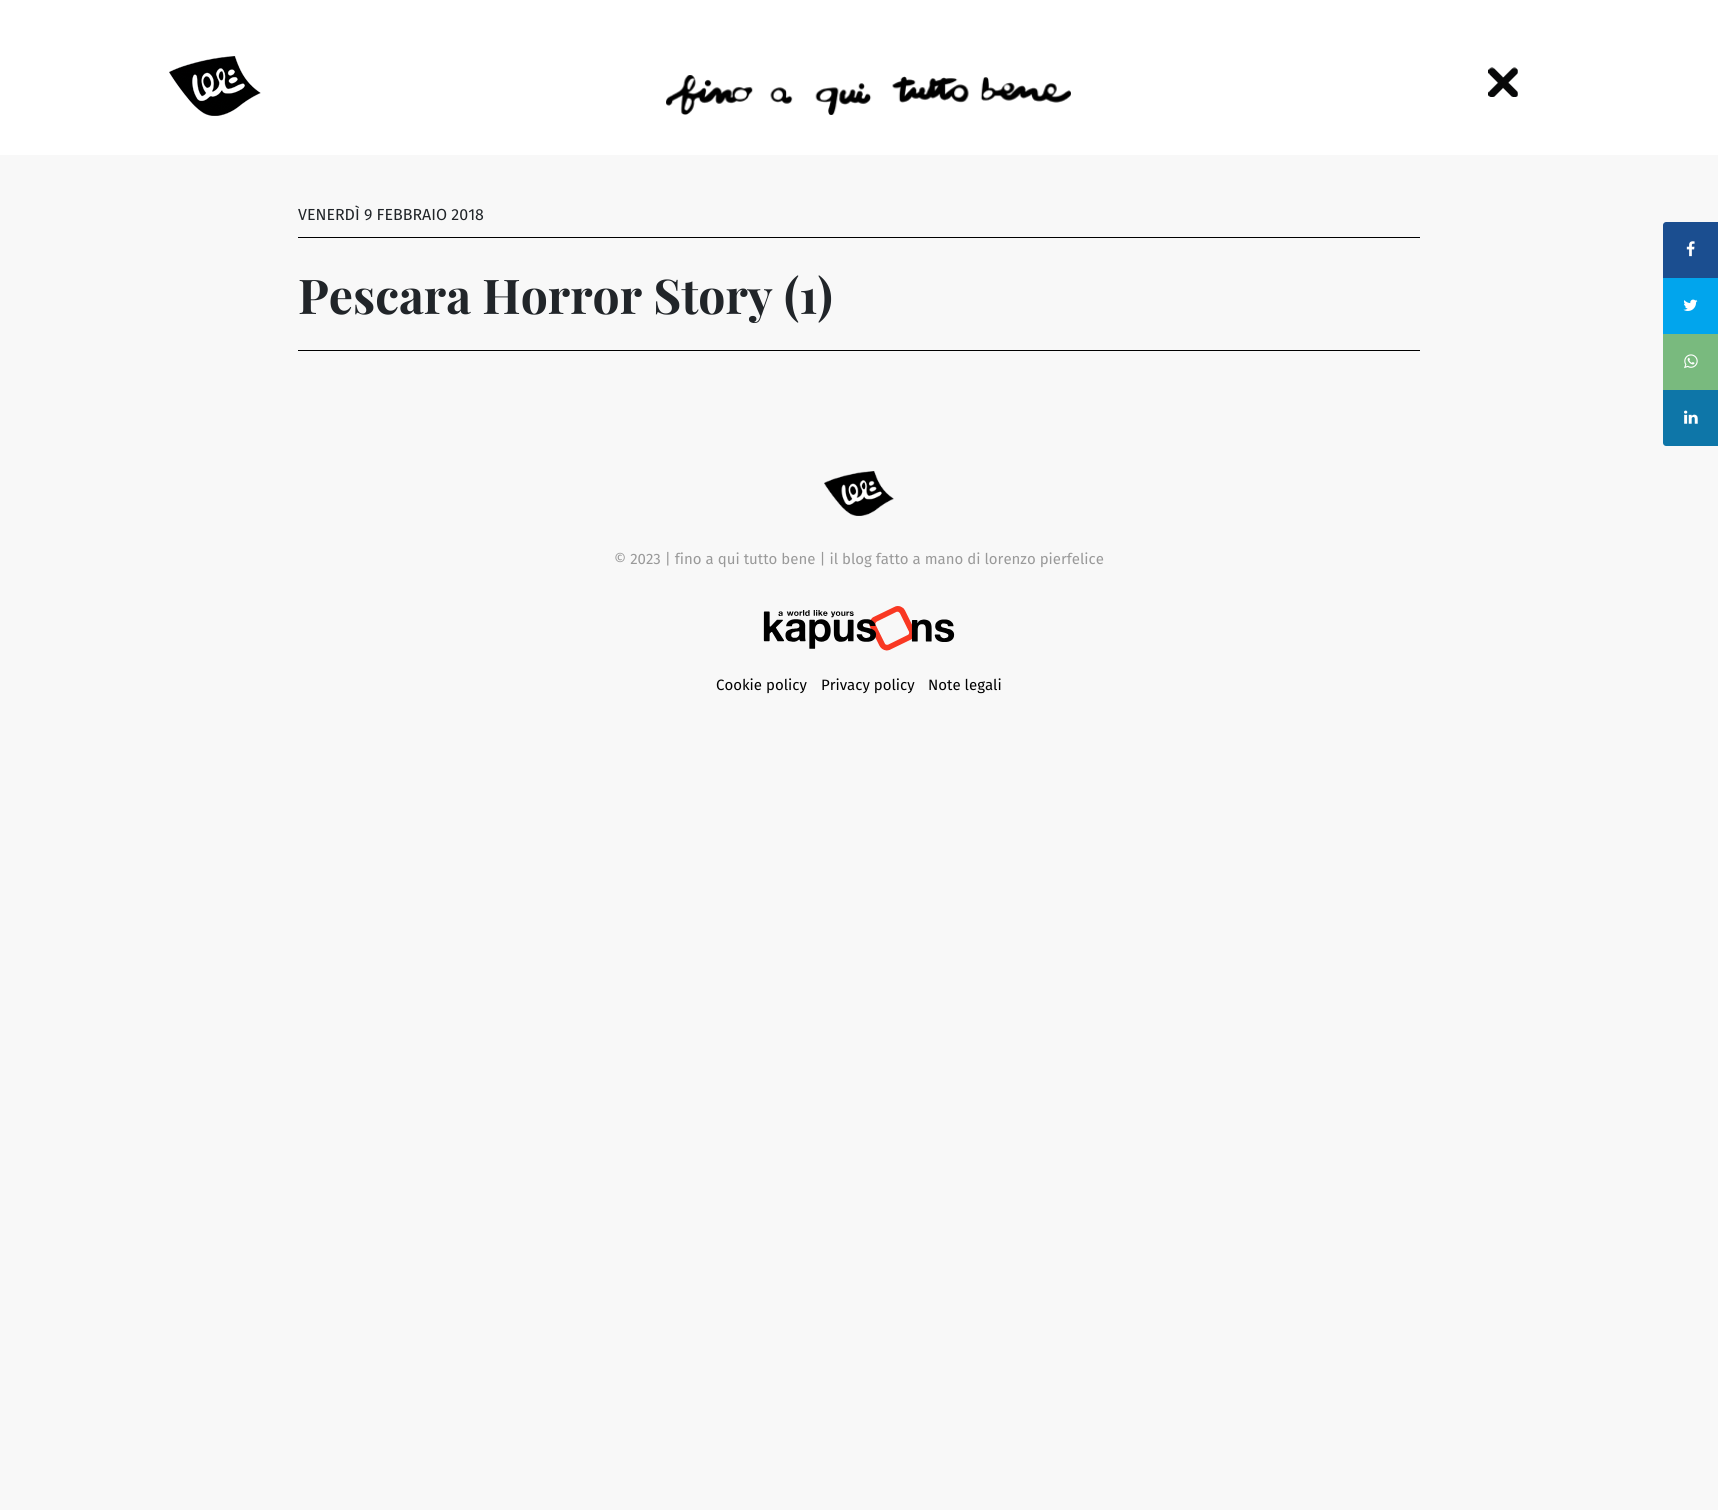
#include <cairo.h>
#include <math.h>
#include <stddef.h>


static void rgb(cairo_t *cr, int r, int g, int b)
{
	cairo_set_source_rgb(cr, r / 255.0, g / 255.0, b / 255.0);
}

static void face(cairo_t *cr, const char *family, double size, int italic, int bold)
{
	cairo_select_font_face(cr, family, italic ? CAIRO_FONT_SLANT_ITALIC : CAIRO_FONT_SLANT_NORMAL,
		bold ? CAIRO_FONT_WEIGHT_BOLD : CAIRO_FONT_WEIGHT_NORMAL);
	cairo_set_font_size(cr, size);
}

static void label(cairo_t *cr, double x, double y, const char *s)
{
	cairo_move_to(cr, x, y);
	cairo_show_text(cr, s);
}

static void rect(cairo_t *cr, double x, double y, double w, double h)
{
	cairo_rectangle(cr, x, y, w, h);
	cairo_fill(cr);
}

static void image(cairo_t *cr, const char *path, double x, double y, double w, double h)
{
	cairo_surface_t *image = cairo_image_surface_create_from_png(path);
	cairo_save(cr);
	cairo_set_source_surface(cr, image, x, y);
	cairo_rectangle(cr, x, y, w, h);
	cairo_fill(cr);
	cairo_restore(cr);
	cairo_surface_destroy(image);
}

static void draw(cairo_t *cr) {
	rgb(cr, 248, 248, 248);
	cairo_paint(cr);
	rgb(cr, 255, 255, 255);
	rect(cr, 0, 0, 1718, 155);
	image(cr, "image0.png", 169, 56, 92, 60);
	image(cr, "image1.png", 666, 75, 405, 40);
	image(cr, "image2.png", 1488, 67, 30, 30);
	face(cr, "Fira Sans", 16, 0, 0);
	rgb(cr, 33, 37, 41);
	label(cr, 298, 220, "VENERDÌ 9 FEBBRAIO 2018");
	rgb(cr, 0, 0, 0);
	rect(cr, 298, 237, 1122, 1);
	rect(cr, 298, 350, 1122, 1);
	face(cr, "Playfair Display", 48, 0, 1);
	rgb(cr, 33, 37, 41);
	label(cr, 298, 314, "Pescara Horror Story (1)");
	rgb(cr, 27, 78, 144);
	cairo_new_path(cr);
	cairo_move_to(cr, 1666, 222);
	cairo_line_to(cr, 1718, 222);
	cairo_line_to(cr, 1718, 278);
	cairo_line_to(cr, 1663, 278);
	cairo_line_to(cr, 1663, 225);
	cairo_curve_to(cr, 1663, 223.5, 1664.5, 222, 1666, 222);
	cairo_close_path(cr);
	cairo_fill(cr);
	image(cr, "image3.png", 1686, 241, 9, 16);
	rgb(cr, 1, 165, 237);
	rect(cr, 1663, 278, 55, 56);
	image(cr, "image4.png", 1683, 299, 15, 12);
	rgb(cr, 121, 186, 126);
	rect(cr, 1663, 334, 55, 56);
	image(cr, "image5.png", 1684, 354, 14, 15);
	rgb(cr, 14, 118, 168);
	cairo_new_path(cr);
	cairo_move_to(cr, 1663, 390);
	cairo_line_to(cr, 1718, 390);
	cairo_line_to(cr, 1718, 446);
	cairo_line_to(cr, 1666, 446);
	cairo_curve_to(cr, 1664.5, 446, 1663, 444.5, 1663, 443);
	cairo_close_path(cr);
	cairo_fill(cr);
	image(cr, "image6.png", 1684, 410, 14, 14);
	image(cr, "image7.png", 824, 471, 70, 45);
	face(cr, "Fira Sans", 15, 0, 0);
	rgb(cr, 153, 153, 153);
	label(cr, 614, 564, "© 2023 | fino a qui tutto bene | il blog fatto a mano di lorenzo pierfelice");
	image(cr, "image8.png", 763, 606, 192, 45);
	rgb(cr, 0, 0, 0);
	label(cr, 716, 690, "Cookie policy");
	label(cr, 821, 690, "Privacy policy");
	label(cr, 928, 690, "Note legali");
}

int main(void) {
	cairo_surface_t *surface = cairo_image_surface_create(CAIRO_FORMAT_RGB24, 1718, 1510);
	cairo_t *cr = cairo_create(surface);
	cairo_font_options_t *options = cairo_font_options_create();
	cairo_font_options_set_hint_metrics(options, CAIRO_HINT_METRICS_OFF);
	cairo_font_options_set_hint_style(options, CAIRO_HINT_STYLE_NONE);
	cairo_set_font_options(cr, options);
	cairo_set_miter_limit(cr, 4);
	draw(cr);
	cairo_surface_write_to_png(surface, "render.png");
	cairo_font_options_destroy(options);
	cairo_destroy(cr);
	cairo_surface_destroy(surface);
	return 0;
}
